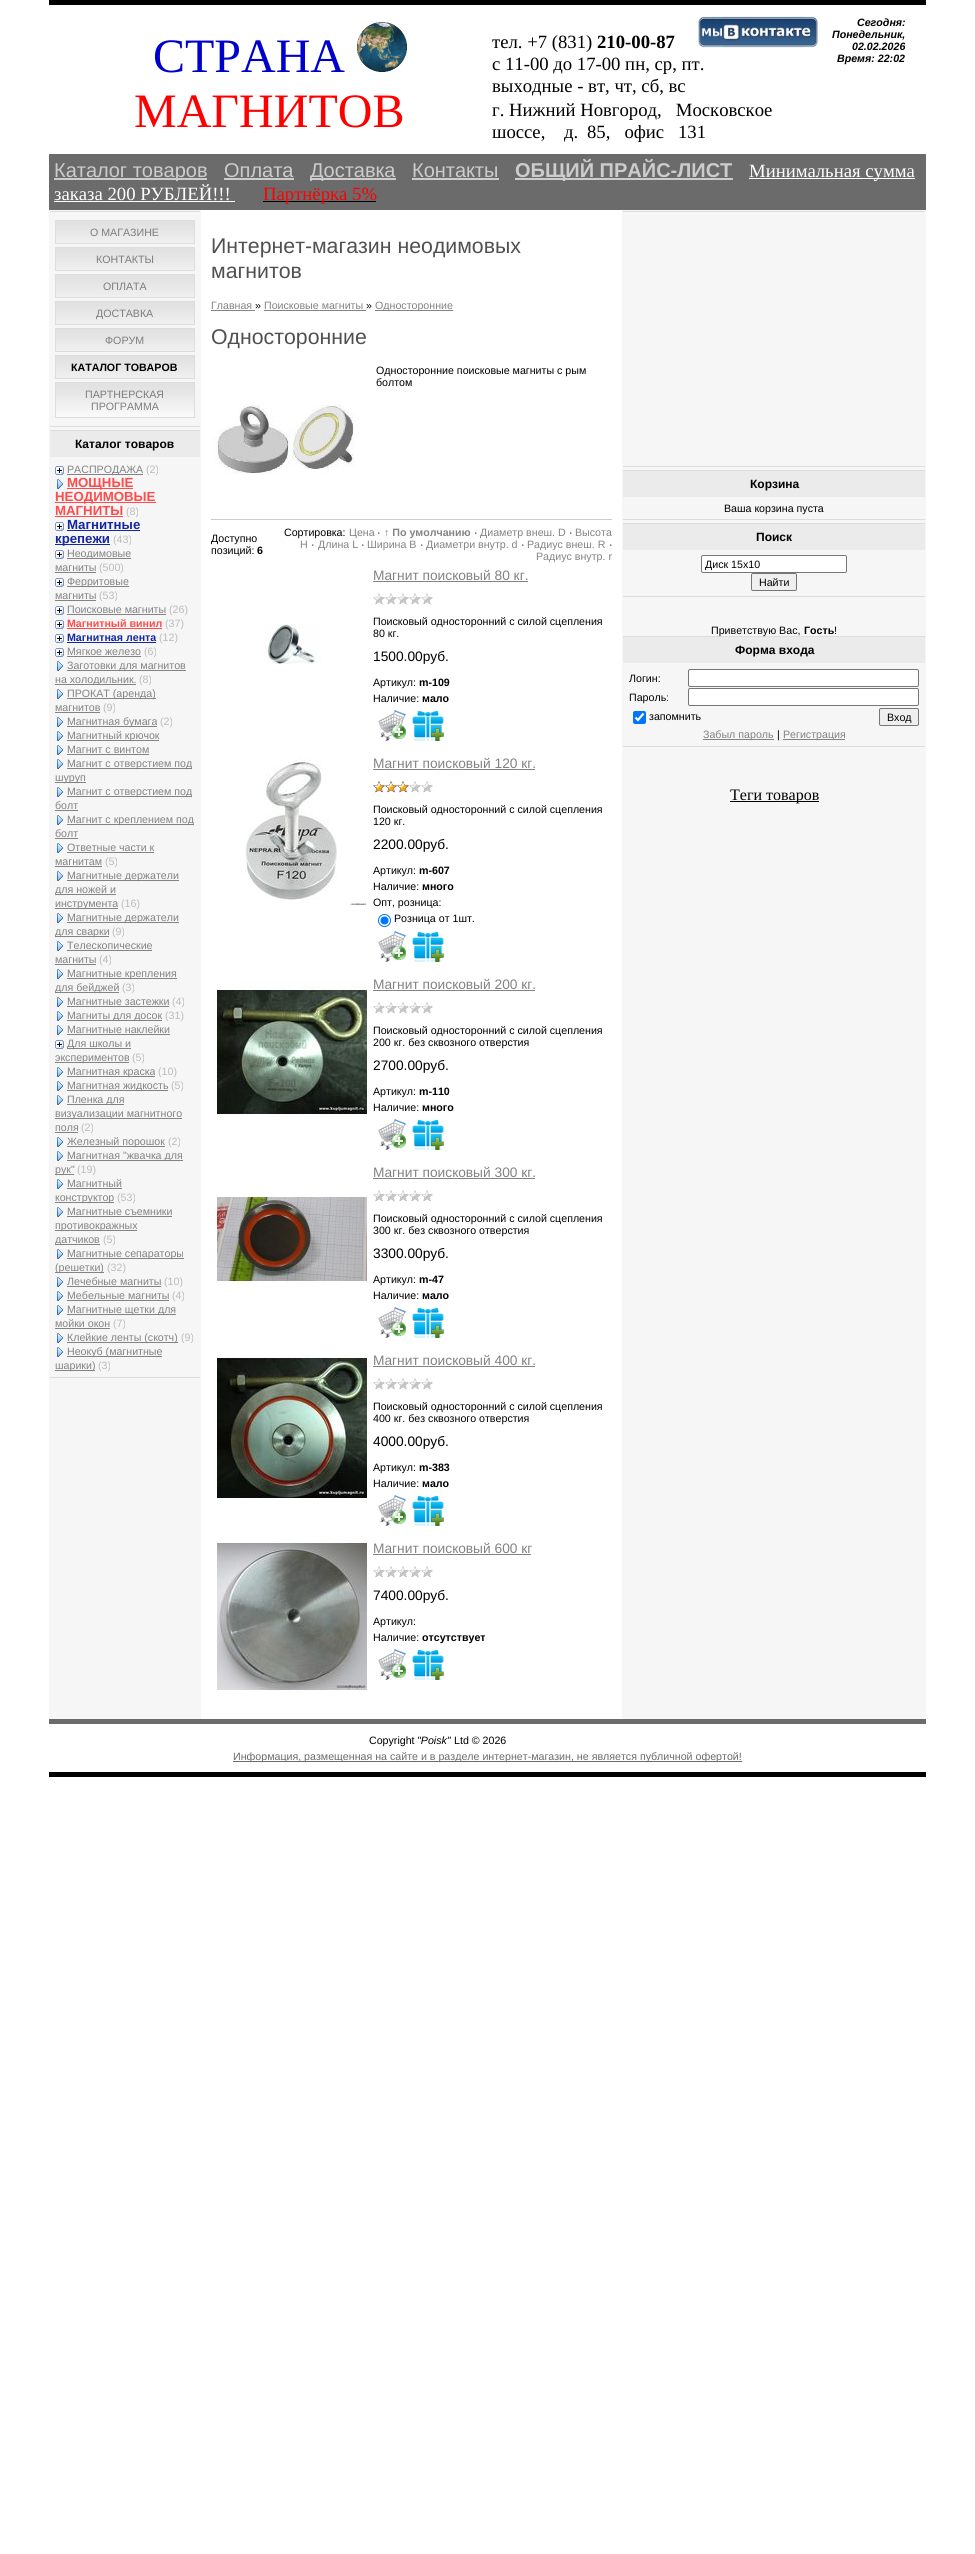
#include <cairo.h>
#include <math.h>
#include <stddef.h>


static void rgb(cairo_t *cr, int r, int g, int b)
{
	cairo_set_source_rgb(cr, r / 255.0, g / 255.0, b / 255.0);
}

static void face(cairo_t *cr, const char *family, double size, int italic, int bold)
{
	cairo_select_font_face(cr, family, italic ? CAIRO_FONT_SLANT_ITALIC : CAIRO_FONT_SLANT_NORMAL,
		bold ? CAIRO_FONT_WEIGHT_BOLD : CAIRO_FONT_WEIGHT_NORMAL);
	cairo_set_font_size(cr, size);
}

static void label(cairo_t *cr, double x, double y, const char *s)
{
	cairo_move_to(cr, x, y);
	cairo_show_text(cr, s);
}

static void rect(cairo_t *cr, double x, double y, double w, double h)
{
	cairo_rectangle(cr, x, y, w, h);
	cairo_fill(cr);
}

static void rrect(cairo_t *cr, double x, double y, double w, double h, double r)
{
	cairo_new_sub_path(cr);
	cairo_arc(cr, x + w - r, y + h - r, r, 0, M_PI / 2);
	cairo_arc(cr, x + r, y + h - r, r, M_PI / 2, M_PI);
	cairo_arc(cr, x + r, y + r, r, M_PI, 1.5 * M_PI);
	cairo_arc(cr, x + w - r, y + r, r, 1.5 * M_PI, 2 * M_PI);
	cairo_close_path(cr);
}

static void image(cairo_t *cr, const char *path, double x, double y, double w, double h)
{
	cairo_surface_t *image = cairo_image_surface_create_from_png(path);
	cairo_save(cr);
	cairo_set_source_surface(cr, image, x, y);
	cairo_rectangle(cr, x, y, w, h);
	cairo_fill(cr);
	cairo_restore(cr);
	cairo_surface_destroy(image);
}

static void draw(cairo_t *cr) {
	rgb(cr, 255, 255, 255);
	cairo_paint(cr);
	rgb(cr, 0, 0, 0);
	rect(cr, 49, 0, 877, 5);
	face(cr, "Liberation Serif", 48, 0, 0);
	rgb(cr, 0, 0, 205);
	label(cr, 153, 72, "СТРАНА");
	image(cr, "image0.png", 357, 22, 50, 50);
	rgb(cr, 255, 0, 0);
	label(cr, 134, 127, "МАГНИТОВ");
	face(cr, "Liberation Serif", 18.7, 0, 0);
	rgb(cr, 0, 0, 0);
	label(cr, 492, 48, "тел. +7 (831)");
	face(cr, "Liberation Serif", 18.7, 0, 1);
	label(cr, 597, 48, "210-00-87");
	image(cr, "image1.png", 698, 16, 120, 32);
	face(cr, "Liberation Serif", 18.7, 0, 0);
	label(cr, 492, 70, "c 11-00 до 17-00 пн, ср, пт.");
	label(cr, 492, 92, "выходные - вт, чт, сб, вс");
	face(cr, "Liberation Sans", 10.65, 1, 1);
	label(cr, 857, 26, "Сегодня:");
	label(cr, 832, 38, "Понедельник,");
	label(cr, 852, 50, "02.02.2026");
	label(cr, 837, 62, "Время: 22:02");
	face(cr, "Liberation Serif", 18.7, 0, 0);
	label(cr, 492, 116, "г. Нижний Новгород,   Московское");
	label(cr, 492, 138, "шоссе,    д.");
	label(cr, 587, 138, "85,   офис");
	label(cr, 678, 138, "131");
	rgb(cr, 107, 107, 107);
	rect(cr, 49, 154, 877, 56);
	rgb(cr, 204, 204, 204);
	rect(cr, 54, 178, 153, 2);
	face(cr, "Liberation Sans", 20, 0, 0);
	label(cr, 54, 177, "Каталог товаров");
	label(cr, 224, 177, "Оплата");
	rect(cr, 224, 178, 70, 2);
	rect(cr, 310, 178, 86, 2);
	label(cr, 310, 177, "Доставка");
	label(cr, 412, 177, "Контакты");
	rect(cr, 412, 178, 87, 2);
	rect(cr, 515, 178, 218, 2);
	face(cr, "Liberation Sans", 20, 0, 1);
	label(cr, 515, 177, "ОБЩИЙ ПРАЙС-ЛИСТ");
	rgb(cr, 255, 255, 255);
	rect(cr, 749, 178, 166, 1);
	face(cr, "Liberation Serif", 18.7, 0, 0);
	label(cr, 749, 177, "Минимальная сумма");
	label(cr, 54, 200, "заказа 200 РУБЛЕЙ!!!");
	rect(cr, 54, 201, 181, 1);
	rgb(cr, 0, 0, 0);
	rect(cr, 263, 201, 113, 1);
	rgb(cr, 255, 0, 0);
	label(cr, 263, 200, "Партнёрка 5%");
	rgb(cr, 246, 246, 246);
	rect(cr, 49, 210, 152, 1509);
	rgb(cr, 221, 221, 221);
	rect(cr, 50, 211, 150, 1);
	rect(cr, 50, 426, 150, 1);
	image(cr, "image2.png", 56, 221, 138, 22);
	cairo_rectangle(cr, 55.5, 220.5, 139, 23);
	cairo_set_line_width(cr, 1);
	cairo_stroke(cr);
	face(cr, "Liberation Sans", 10.65, 0, 0);
	rgb(cr, 125, 125, 125);
	label(cr, 90, 236, "О МАГАЗИНЕ");
	image(cr, "image2.png", 56, 248, 138, 22);
	cairo_rectangle(cr, 55.5, 247.5, 139, 23);
	rgb(cr, 221, 221, 221);
	cairo_stroke(cr);
	rgb(cr, 125, 125, 125);
	label(cr, 96, 263, "КОНТАКТЫ");
	image(cr, "image2.png", 56, 275, 138, 22);
	cairo_rectangle(cr, 55.5, 274.5, 139, 23);
	rgb(cr, 221, 221, 221);
	cairo_stroke(cr);
	rgb(cr, 125, 125, 125);
	label(cr, 103, 290, "ОПЛАТА");
	image(cr, "image2.png", 56, 302, 138, 22);
	cairo_rectangle(cr, 55.5, 301.5, 139, 23);
	rgb(cr, 221, 221, 221);
	cairo_stroke(cr);
	rgb(cr, 125, 125, 125);
	label(cr, 96, 317, "ДОСТАВКА");
	image(cr, "image2.png", 56, 329, 138, 22);
	cairo_rectangle(cr, 55.5, 328.5, 139, 23);
	rgb(cr, 221, 221, 221);
	cairo_stroke(cr);
	rgb(cr, 125, 125, 125);
	label(cr, 105, 344, "ФОРУМ");
	image(cr, "image2.png", 56, 356, 138, 22);
	cairo_rectangle(cr, 55.5, 355.5, 139, 23);
	rgb(cr, 221, 221, 221);
	cairo_stroke(cr);
	face(cr, "Liberation Sans", 10.65, 0, 1);
	rgb(cr, 0, 0, 0);
	label(cr, 71, 371, "КАТАЛОГ ТОВАРОВ");
	image(cr, "image3.png", 56, 383, 138, 34);
	cairo_rectangle(cr, 55.5, 382.5, 139, 35);
	rgb(cr, 221, 221, 221);
	cairo_stroke(cr);
	face(cr, "Liberation Sans", 10.65, 0, 0);
	rgb(cr, 125, 125, 125);
	label(cr, 85, 398, "ПАРТНЕРСКАЯ");
	label(cr, 91, 410, "ПРОГРАММА");
	rgb(cr, 221, 221, 221);
	rect(cr, 50, 430, 150, 1);
	rect(cr, 50, 1377, 150, 1);
	rgb(cr, 235, 235, 235);
	rect(cr, 50, 431, 150, 26);
	face(cr, "Liberation Sans", 12, 0, 1);
	rgb(cr, 0, 0, 0);
	label(cr, 75, 448, "Каталог товаров");
	image(cr, "image4.png", 55, 466, 9, 9);
	rgb(cr, 131, 131, 131);
	rect(cr, 67, 474, 76, 1);
	face(cr, "Liberation Sans", 10.65, 0, 0);
	label(cr, 67, 473, "РАСПРОДАЖА");
	rgb(cr, 187, 187, 187);
	label(cr, 146, 473, "(2)");
	image(cr, "image5.png", 57, 479, 6, 10);
	rgb(cr, 255, 75, 75);
	rect(cr, 67, 488, 66, 1);
	face(cr, "Liberation Sans", 13.25, 0, 1);
	label(cr, 67, 487, "МОЩНЫЕ");
	rect(cr, 55, 502, 101, 1);
	label(cr, 55, 501, "НЕОДИМОВЫЕ");
	label(cr, 55, 515, "МАГНИТЫ");
	rect(cr, 55, 516, 68, 1);
	face(cr, "Liberation Sans", 10.65, 0, 0);
	rgb(cr, 187, 187, 187);
	label(cr, 126, 515, "(8)");
	image(cr, "image4.png", 55, 522, 9, 9);
	face(cr, "Liberation Sans", 13.25, 0, 1);
	rgb(cr, 20, 39, 162);
	label(cr, 67, 529, "Магнитные");
	rect(cr, 67, 530, 73, 1);
	rect(cr, 55, 544, 55, 1);
	label(cr, 55, 543, "крепежи");
	face(cr, "Liberation Sans", 10.65, 0, 0);
	rgb(cr, 187, 187, 187);
	label(cr, 113, 543, "(43)");
	image(cr, "image4.png", 55, 550, 9, 9);
	rgb(cr, 131, 131, 131);
	rect(cr, 67, 558, 64, 1);
	label(cr, 67, 557, "Неодимовые");
	label(cr, 55, 571, "магниты");
	rect(cr, 55, 572, 41, 1);
	rgb(cr, 187, 187, 187);
	label(cr, 99, 571, "(500)");
	image(cr, "image4.png", 55, 578, 9, 9);
	rgb(cr, 131, 131, 131);
	rect(cr, 67, 586, 62, 1);
	label(cr, 67, 585, "Ферритовые");
	label(cr, 55, 599, "магниты");
	rect(cr, 55, 600, 41, 1);
	rgb(cr, 187, 187, 187);
	label(cr, 99, 599, "(53)");
	image(cr, "image4.png", 55, 606, 9, 9);
	rgb(cr, 131, 131, 131);
	label(cr, 67, 613, "Поисковые магниты");
	rect(cr, 67, 614, 99, 1);
	rgb(cr, 187, 187, 187);
	label(cr, 169, 613, "(26)");
	image(cr, "image4.png", 55, 620, 9, 9);
	face(cr, "Liberation Sans", 10.65, 0, 1);
	rgb(cr, 255, 75, 75);
	label(cr, 67, 627, "Магнитный винил");
	rect(cr, 67, 628, 95, 1);
	face(cr, "Liberation Sans", 10.65, 0, 0);
	rgb(cr, 187, 187, 187);
	label(cr, 165, 627, "(37)");
	image(cr, "image4.png", 55, 634, 9, 9);
	face(cr, "Liberation Sans", 10.65, 0, 1);
	rgb(cr, 20, 39, 162);
	label(cr, 67, 641, "Магнитная лента");
	rect(cr, 67, 642, 89, 1);
	face(cr, "Liberation Sans", 10.65, 0, 0);
	rgb(cr, 187, 187, 187);
	label(cr, 159, 641, "(12)");
	image(cr, "image4.png", 55, 648, 9, 9);
	rgb(cr, 131, 131, 131);
	label(cr, 67, 655, "Мягкое железо");
	rect(cr, 67, 656, 74, 1);
	rgb(cr, 187, 187, 187);
	label(cr, 144, 655, "(6)");
	image(cr, "image5.png", 57, 661, 6, 10);
	rgb(cr, 131, 131, 131);
	rect(cr, 67, 670, 119, 1);
	label(cr, 67, 669, "Заготовки для магнитов");
	rect(cr, 55, 684, 81, 1);
	label(cr, 55, 683, "на холодильник.");
	rgb(cr, 187, 187, 187);
	label(cr, 139, 683, "(8)");
	image(cr, "image5.png", 57, 689, 6, 10);
	rgb(cr, 131, 131, 131);
	rect(cr, 67, 698, 89, 1);
	label(cr, 67, 697, "ПРОКАТ (аренда)");
	label(cr, 55, 711, "магнитов");
	rect(cr, 55, 712, 45, 1);
	rgb(cr, 187, 187, 187);
	label(cr, 103, 711, "(9)");
	image(cr, "image5.png", 57, 717, 6, 10);
	rgb(cr, 131, 131, 131);
	rect(cr, 67, 726, 90, 1);
	label(cr, 67, 725, "Магнитная бумага");
	rgb(cr, 187, 187, 187);
	label(cr, 160, 725, "(2)");
	image(cr, "image5.png", 57, 731, 6, 10);
	rgb(cr, 131, 131, 131);
	rect(cr, 67, 740, 92, 1);
	label(cr, 67, 739, "Магнитный крючок");
	image(cr, "image5.png", 57, 745, 6, 10);
	label(cr, 67, 753, "Магнит с винтом");
	rect(cr, 67, 754, 82, 1);
	image(cr, "image5.png", 57, 759, 6, 10);
	rect(cr, 67, 768, 125, 1);
	label(cr, 67, 767, "Магнит с отверстием под");
	rect(cr, 55, 782, 31, 1);
	label(cr, 55, 781, "шуруп");
	image(cr, "image5.png", 57, 787, 6, 10);
	rect(cr, 67, 796, 125, 1);
	label(cr, 67, 795, "Магнит с отверстием под");
	label(cr, 55, 809, "болт");
	rect(cr, 55, 810, 23, 1);
	image(cr, "image5.png", 57, 815, 6, 10);
	rect(cr, 67, 824, 127, 1);
	label(cr, 67, 823, "Магнит с креплением под");
	label(cr, 55, 837, "болт");
	rect(cr, 55, 838, 23, 1);
	image(cr, "image5.png", 57, 843, 6, 10);
	label(cr, 67, 851, "Ответные части к");
	rect(cr, 67, 852, 87, 1);
	label(cr, 55, 865, "магнитам");
	rect(cr, 55, 866, 47, 1);
	rgb(cr, 187, 187, 187);
	label(cr, 105, 865, "(5)");
	image(cr, "image5.png", 57, 871, 6, 10);
	rgb(cr, 131, 131, 131);
	rect(cr, 67, 880, 112, 1);
	label(cr, 67, 879, "Магнитные держатели");
	rect(cr, 55, 894, 61, 1);
	label(cr, 55, 893, "для ножей и");
	rect(cr, 55, 908, 63, 1);
	label(cr, 55, 907, "инструмента");
	rgb(cr, 187, 187, 187);
	label(cr, 121, 907, "(16)");
	image(cr, "image5.png", 57, 913, 6, 10);
	rgb(cr, 131, 131, 131);
	rect(cr, 67, 922, 112, 1);
	label(cr, 67, 921, "Магнитные держатели");
	rect(cr, 55, 936, 54, 1);
	label(cr, 55, 935, "для сварки");
	rgb(cr, 187, 187, 187);
	label(cr, 112, 935, "(9)");
	image(cr, "image5.png", 57, 941, 6, 10);
	rgb(cr, 131, 131, 131);
	label(cr, 67, 949, "Телескопические");
	rect(cr, 67, 950, 85, 1);
	label(cr, 55, 963, "магниты");
	rect(cr, 55, 964, 41, 1);
	rgb(cr, 187, 187, 187);
	label(cr, 99, 963, "(4)");
	image(cr, "image5.png", 57, 969, 6, 10);
	rgb(cr, 131, 131, 131);
	rect(cr, 67, 978, 110, 1);
	label(cr, 67, 977, "Магнитные крепления");
	rect(cr, 55, 992, 64, 1);
	label(cr, 55, 991, "для бейджей");
	rgb(cr, 187, 187, 187);
	label(cr, 122, 991, "(3)");
	image(cr, "image5.png", 57, 997, 6, 10);
	rgb(cr, 131, 131, 131);
	label(cr, 67, 1005, "Магнитные застежки");
	rect(cr, 67, 1006, 102, 1);
	rgb(cr, 187, 187, 187);
	label(cr, 172, 1005, "(4)");
	image(cr, "image5.png", 57, 1011, 6, 10);
	rgb(cr, 131, 131, 131);
	rect(cr, 67, 1020, 95, 1);
	label(cr, 67, 1019, "Магниты для досок");
	rgb(cr, 187, 187, 187);
	label(cr, 165, 1019, "(31)");
	image(cr, "image5.png", 57, 1025, 6, 10);
	rgb(cr, 131, 131, 131);
	label(cr, 67, 1033, "Магнитные наклейки");
	rect(cr, 67, 1034, 103, 1);
	image(cr, "image4.png", 55, 1040, 9, 9);
	rect(cr, 67, 1048, 64, 1);
	label(cr, 67, 1047, "Для школы и");
	rect(cr, 55, 1062, 74, 1);
	label(cr, 55, 1061, "экспериментов");
	rgb(cr, 187, 187, 187);
	label(cr, 132, 1061, "(5)");
	image(cr, "image5.png", 57, 1067, 6, 10);
	rgb(cr, 131, 131, 131);
	rect(cr, 67, 1076, 88, 1);
	label(cr, 67, 1075, "Магнитная краска");
	rgb(cr, 187, 187, 187);
	label(cr, 158, 1075, "(10)");
	image(cr, "image5.png", 57, 1081, 6, 10);
	rgb(cr, 131, 131, 131);
	rect(cr, 67, 1090, 101, 1);
	label(cr, 67, 1089, "Магнитная жидкость");
	rgb(cr, 187, 187, 187);
	label(cr, 171, 1089, "(5)");
	image(cr, "image5.png", 57, 1095, 6, 10);
	rgb(cr, 131, 131, 131);
	rect(cr, 67, 1104, 57, 1);
	label(cr, 67, 1103, "Пленка для");
	rect(cr, 55, 1118, 127, 1);
	label(cr, 55, 1117, "визуализации магнитного");
	label(cr, 55, 1131, "поля");
	rect(cr, 55, 1132, 23, 1);
	rgb(cr, 187, 187, 187);
	label(cr, 81, 1131, "(2)");
	image(cr, "image5.png", 57, 1137, 6, 10);
	rgb(cr, 131, 131, 131);
	rect(cr, 67, 1146, 98, 1);
	label(cr, 67, 1145, "Железный порошок");
	rgb(cr, 187, 187, 187);
	label(cr, 168, 1145, "(2)");
	image(cr, "image5.png", 57, 1151, 6, 10);
	rgb(cr, 131, 131, 131);
	rect(cr, 67, 1160, 116, 1);
	label(cr, 67, 1159, "Магнитная \"жвачка для");
	rect(cr, 55, 1174, 19, 1);
	label(cr, 55, 1173, "рук\"");
	rgb(cr, 187, 187, 187);
	label(cr, 77, 1173, "(19)");
	image(cr, "image5.png", 57, 1179, 6, 10);
	rgb(cr, 131, 131, 131);
	label(cr, 67, 1187, "Магнитный");
	rect(cr, 67, 1188, 55, 1);
	rect(cr, 55, 1202, 59, 1);
	label(cr, 55, 1201, "конструктор");
	rgb(cr, 187, 187, 187);
	label(cr, 117, 1201, "(53)");
	image(cr, "image5.png", 57, 1207, 6, 10);
	rgb(cr, 131, 131, 131);
	label(cr, 67, 1215, "Магнитные съемники");
	rect(cr, 67, 1216, 105, 1);
	rect(cr, 55, 1230, 82, 1);
	label(cr, 55, 1229, "противокражных");
	rect(cr, 55, 1244, 45, 1);
	label(cr, 55, 1243, "датчиков");
	rgb(cr, 187, 187, 187);
	label(cr, 103, 1243, "(5)");
	image(cr, "image5.png", 57, 1249, 6, 10);
	rgb(cr, 131, 131, 131);
	rect(cr, 67, 1258, 117, 1);
	label(cr, 67, 1257, "Магнитные сепараторы");
	rect(cr, 55, 1272, 49, 1);
	label(cr, 55, 1271, "(решетки)");
	rgb(cr, 187, 187, 187);
	label(cr, 107, 1271, "(32)");
	image(cr, "image5.png", 57, 1277, 6, 10);
	rgb(cr, 131, 131, 131);
	label(cr, 67, 1285, "Лечебные магниты");
	rect(cr, 67, 1286, 94, 1);
	rgb(cr, 187, 187, 187);
	label(cr, 164, 1285, "(10)");
	image(cr, "image5.png", 57, 1291, 6, 10);
	rgb(cr, 131, 131, 131);
	label(cr, 67, 1299, "Мебельные магниты");
	rect(cr, 67, 1300, 102, 1);
	rgb(cr, 187, 187, 187);
	label(cr, 172, 1299, "(4)");
	image(cr, "image5.png", 57, 1305, 6, 10);
	rgb(cr, 131, 131, 131);
	rect(cr, 67, 1314, 109, 1);
	label(cr, 67, 1313, "Магнитные щетки для");
	label(cr, 55, 1327, "мойки окон");
	rect(cr, 55, 1328, 55, 1);
	rgb(cr, 187, 187, 187);
	label(cr, 113, 1327, "(7)");
	image(cr, "image5.png", 57, 1333, 6, 10);
	rgb(cr, 131, 131, 131);
	rect(cr, 67, 1342, 111, 1);
	label(cr, 67, 1341, "Клейкие ленты (скотч)");
	rgb(cr, 187, 187, 187);
	label(cr, 181, 1341, "(9)");
	image(cr, "image5.png", 57, 1347, 6, 10);
	rgb(cr, 131, 131, 131);
	rect(cr, 67, 1356, 95, 1);
	label(cr, 67, 1355, "Неокуб (магнитные");
	rect(cr, 55, 1370, 40, 1);
	label(cr, 55, 1369, "шарики)");
	rgb(cr, 187, 187, 187);
	label(cr, 98, 1369, "(3)");
	face(cr, "Liberation Sans", 21.3, 0, 0);
	rgb(cr, 80, 80, 80);
	label(cr, 211, 253, "Интернет-магазин неодимовых");
	label(cr, 211, 278, "магнитов");
	face(cr, "Liberation Sans", 10.65, 0, 0);
	rgb(cr, 131, 131, 131);
	label(cr, 211, 309, "Главная");
	rgb(cr, 0, 0, 0);
	label(cr, 255, 309, "»");
	rgb(cr, 131, 131, 131);
	rect(cr, 211, 310, 44, 1);
	label(cr, 264, 309, "Поисковые магниты");
	rgb(cr, 0, 0, 0);
	label(cr, 366, 309, "»");
	rgb(cr, 131, 131, 131);
	rect(cr, 264, 310, 102, 1);
	rect(cr, 375, 310, 78, 1);
	label(cr, 375, 309, "Односторонние");
	face(cr, "Liberation Sans", 21.3, 0, 0);
	rgb(cr, 80, 80, 80);
	label(cr, 211, 344, "Односторонние");
	face(cr, "Liberation Sans", 10.65, 0, 0);
	rgb(cr, 0, 0, 0);
	label(cr, 376, 374, "Односторонние поисковые магниты с рым");
	label(cr, 376, 386, "болтом");
	image(cr, "image6.png", 212, 404, 143, 71);
	rgb(cr, 204, 204, 204);
	rect(cr, 211, 519, 401, 1);
	cairo_save(cr);
	cairo_rectangle(cr, 211, 220, 401, 1489);
	cairo_clip(cr);
	rgb(cr, 0, 0, 0);
	label(cr, 211, 542, "Доступно");
	cairo_restore(cr);
	rgb(cr, 0, 0, 0);
	label(cr, 211, 554, "позиций:");
	face(cr, "Liberation Sans", 10.65, 0, 1);
	label(cr, 257, 554, "6");
	face(cr, "Liberation Sans", 10.65, 0, 0);
	label(cr, 284, 536, "Сортировка:");
	rgb(cr, 131, 131, 131);
	label(cr, 349, 536, "Цена");
	rgb(cr, 0, 0, 0);
	label(cr, 377, 536, "·");
	face(cr, "Liberation Sans", 10.65, 0, 1);
	rgb(cr, 131, 131, 131);
	label(cr, 384, 536, "↑ По умолчанию");
	face(cr, "Liberation Sans", 10.65, 0, 0);
	rgb(cr, 0, 0, 0);
	label(cr, 474, 536, "·");
	rgb(cr, 131, 131, 131);
	label(cr, 480, 536, "Диаметр внеш. D");
	rgb(cr, 0, 0, 0);
	label(cr, 569, 536, "·");
	rgb(cr, 131, 131, 131);
	label(cr, 575, 536, "Высота");
	label(cr, 300, 548, "H");
	rgb(cr, 0, 0, 0);
	label(cr, 311, 548, "·");
	rgb(cr, 131, 131, 131);
	label(cr, 318, 548, "Длина L");
	rgb(cr, 0, 0, 0);
	label(cr, 361, 548, "·");
	rgb(cr, 131, 131, 131);
	label(cr, 367, 548, "Ширина B");
	rgb(cr, 0, 0, 0);
	label(cr, 420, 548, "·");
	rgb(cr, 131, 131, 131);
	label(cr, 426, 548, "Диаметри внутр. d");
	rgb(cr, 0, 0, 0);
	label(cr, 521, 548, "·");
	rgb(cr, 131, 131, 131);
	label(cr, 527, 548, "Радиус внеш. R");
	rgb(cr, 0, 0, 0);
	label(cr, 609, 548, "·");
	rgb(cr, 131, 131, 131);
	label(cr, 536, 560, "Радиус внутр. r");
	image(cr, "image7.png", 265, 624, 56, 40);
	face(cr, "Liberation Sans", 13.75, 0, 0);
	label(cr, 373, 580, "Магнит поисковый 80 кг.");
	rect(cr, 373, 581, 155, 1);
	image(cr, "image8.png", 373, 593, 60, 12);
	face(cr, "Liberation Sans", 10.65, 0, 0);
	rgb(cr, 0, 0, 0);
	label(cr, 373, 625, "Поисковый односторонний с силой сцепления");
	label(cr, 373, 637, "80 кг.");
	face(cr, "Liberation Sans", 13.75, 0, 0);
	label(cr, 373, 661, "1500.00руб.");
	face(cr, "Liberation Sans", 10.65, 0, 0);
	label(cr, 373, 686, "Артикул:");
	face(cr, "Liberation Sans", 10.65, 0, 1);
	label(cr, 419, 686, "m-109");
	face(cr, "Liberation Sans", 10.65, 0, 0);
	label(cr, 373, 702, "Наличие:");
	face(cr, "Liberation Sans", 10.65, 0, 1);
	label(cr, 422, 702, "мало");
	image(cr, "image9.png", 378, 710, 28, 31);
	image(cr, "image10.png", 412, 711, 32, 30);
	image(cr, "image11.png", 245, 757, 122, 149);
	face(cr, "Liberation Sans", 13.75, 0, 0);
	rgb(cr, 131, 131, 131);
	label(cr, 373, 768, "Магнит поисковый 120 кг.");
	rect(cr, 373, 769, 162, 1);
	image(cr, "image8.png", 373, 781, 60, 12);
	image(cr, "image12.png", 373, 781, 36, 12);
	face(cr, "Liberation Sans", 10.65, 0, 0);
	rgb(cr, 0, 0, 0);
	label(cr, 373, 813, "Поисковый односторонний с силой сцепления");
	label(cr, 373, 825, "120 кг.");
	face(cr, "Liberation Sans", 13.75, 0, 0);
	label(cr, 373, 849, "2200.00руб.");
	face(cr, "Liberation Sans", 10.65, 0, 0);
	label(cr, 373, 874, "Артикул:");
	face(cr, "Liberation Sans", 10.65, 0, 1);
	label(cr, 419, 874, "m-607");
	face(cr, "Liberation Sans", 10.65, 0, 0);
	label(cr, 373, 890, "Наличие:");
	face(cr, "Liberation Sans", 10.65, 0, 1);
	label(cr, 422, 890, "много");
	face(cr, "Liberation Sans", 10.65, 0, 0);
	label(cr, 373, 906, "Опт, розница:");
	cairo_new_path(cr);
	cairo_arc(cr, 384.5, 920.5, 6, 0, 2 * M_PI);
	rgb(cr, 0, 117, 255);
	cairo_stroke(cr);
	cairo_arc(cr, 384.5, 920.5, 4, 0, 2 * M_PI);
	cairo_fill(cr);
	rgb(cr, 0, 0, 0);
	label(cr, 394, 922, "Розница от 1шт.");
	image(cr, "image9.png", 378, 931, 28, 31);
	image(cr, "image10.png", 412, 932, 32, 30);
	image(cr, "image13.png", 217, 985, 150, 132);
	face(cr, "Liberation Sans", 13.75, 0, 0);
	rgb(cr, 131, 131, 131);
	label(cr, 373, 989, "Магнит поисковый 200 кг.");
	rect(cr, 373, 990, 162, 1);
	image(cr, "image8.png", 373, 1002, 60, 12);
	face(cr, "Liberation Sans", 10.65, 0, 0);
	rgb(cr, 0, 0, 0);
	label(cr, 373, 1034, "Поисковый односторонний с силой сцепления");
	label(cr, 373, 1046, "200 кг. без сквозного отверстия");
	face(cr, "Liberation Sans", 13.75, 0, 0);
	label(cr, 373, 1070, "2700.00руб.");
	face(cr, "Liberation Sans", 10.65, 0, 0);
	label(cr, 373, 1095, "Артикул:");
	face(cr, "Liberation Sans", 10.65, 0, 1);
	label(cr, 419, 1095, "m-110");
	face(cr, "Liberation Sans", 10.65, 0, 0);
	label(cr, 373, 1111, "Наличие:");
	face(cr, "Liberation Sans", 10.65, 0, 1);
	label(cr, 422, 1111, "много");
	image(cr, "image9.png", 378, 1119, 28, 31);
	image(cr, "image10.png", 412, 1120, 32, 30);
	image(cr, "image14.png", 217, 1196, 150, 97);
	face(cr, "Liberation Sans", 13.75, 0, 0);
	rgb(cr, 131, 131, 131);
	label(cr, 373, 1177, "Магнит поисковый 300 кг.");
	rect(cr, 373, 1178, 162, 1);
	image(cr, "image8.png", 373, 1190, 60, 12);
	face(cr, "Liberation Sans", 10.65, 0, 0);
	rgb(cr, 0, 0, 0);
	label(cr, 373, 1222, "Поисковый односторонний с силой сцепления");
	label(cr, 373, 1234, "300 кг. без сквозного отверстия");
	face(cr, "Liberation Sans", 13.75, 0, 0);
	label(cr, 373, 1258, "3300.00руб.");
	face(cr, "Liberation Sans", 10.65, 0, 0);
	label(cr, 373, 1283, "Артикул:");
	face(cr, "Liberation Sans", 10.65, 0, 1);
	label(cr, 419, 1283, "m-47");
	face(cr, "Liberation Sans", 10.65, 0, 0);
	label(cr, 373, 1299, "Наличие:");
	face(cr, "Liberation Sans", 10.65, 0, 1);
	label(cr, 422, 1299, "мало");
	image(cr, "image9.png", 378, 1307, 28, 31);
	image(cr, "image10.png", 412, 1308, 32, 30);
	image(cr, "image15.png", 217, 1355, 150, 144);
	face(cr, "Liberation Sans", 13.75, 0, 0);
	rgb(cr, 131, 131, 131);
	label(cr, 373, 1365, "Магнит поисковый 400 кг.");
	rect(cr, 373, 1366, 162, 1);
	image(cr, "image8.png", 373, 1378, 60, 12);
	face(cr, "Liberation Sans", 10.65, 0, 0);
	rgb(cr, 0, 0, 0);
	label(cr, 373, 1410, "Поисковый односторонний с силой сцепления");
	label(cr, 373, 1422, "400 кг. без сквозного отверстия");
	face(cr, "Liberation Sans", 13.75, 0, 0);
	label(cr, 373, 1446, "4000.00руб.");
	face(cr, "Liberation Sans", 10.65, 0, 0);
	label(cr, 373, 1471, "Артикул:");
	face(cr, "Liberation Sans", 10.65, 0, 1);
	label(cr, 419, 1471, "m-383");
	face(cr, "Liberation Sans", 10.65, 0, 0);
	label(cr, 373, 1487, "Наличие:");
	face(cr, "Liberation Sans", 10.65, 0, 1);
	label(cr, 422, 1487, "мало");
	image(cr, "image9.png", 378, 1495, 28, 31);
	image(cr, "image10.png", 412, 1496, 32, 30);
	image(cr, "image16.png", 217, 1541, 150, 149);
	face(cr, "Liberation Sans", 13.75, 0, 0);
	rgb(cr, 131, 131, 131);
	label(cr, 373, 1553, "Магнит поисковый 600 кг");
	rect(cr, 373, 1554, 158, 1);
	image(cr, "image8.png", 373, 1566, 60, 12);
	rgb(cr, 0, 0, 0);
	label(cr, 373, 1600, "7400.00руб.");
	face(cr, "Liberation Sans", 10.65, 0, 0);
	label(cr, 373, 1625, "Артикул:");
	label(cr, 373, 1641, "Наличие:");
	face(cr, "Liberation Sans", 10.65, 0, 1);
	label(cr, 422, 1641, "отсутствует");
	image(cr, "image9.png", 378, 1649, 28, 31);
	image(cr, "image10.png", 412, 1650, 32, 30);
	rgb(cr, 246, 246, 246);
	rect(cr, 622, 210, 304, 1509);
	rgb(cr, 221, 221, 221);
	rect(cr, 623, 211, 302, 1);
	rect(cr, 623, 466, 302, 1);
	rect(cr, 623, 470, 302, 1);
	rect(cr, 623, 519, 302, 1);
	rgb(cr, 235, 235, 235);
	rect(cr, 623, 471, 302, 26);
	face(cr, "Liberation Sans", 12, 0, 1);
	rgb(cr, 0, 0, 0);
	label(cr, 750, 488, "Корзина");
	face(cr, "Liberation Sans", 10.65, 0, 0);
	label(cr, 724, 512, "Ваша корзина пуста");
	rgb(cr, 221, 221, 221);
	rect(cr, 623, 523, 302, 1);
	rect(cr, 623, 596, 302, 1);
	rgb(cr, 235, 235, 235);
	rect(cr, 623, 524, 302, 26);
	face(cr, "Liberation Sans", 12, 0, 1);
	rgb(cr, 0, 0, 0);
	label(cr, 756, 541, "Поиск");
	rgb(cr, 255, 255, 255);
	rrect(cr, 701.5, 555.5, 145, 17, 1.5);
	cairo_fill_preserve(cr);
	rgb(cr, 118, 118, 118);
	cairo_stroke(cr);
	face(cr, "Liberation Sans", 10.65, 0, 0);
	rgb(cr, 0, 0, 0);
	label(cr, 705, 568, "Диск 15х10");
	rgb(cr, 239, 239, 239);
	rrect(cr, 751.5, 573.5, 45, 17, 1.5);
	cairo_fill_preserve(cr);
	rgb(cr, 118, 118, 118);
	cairo_stroke(cr);
	rgb(cr, 0, 0, 0);
	label(cr, 759, 586, "Найти");
	rgb(cr, 221, 221, 221);
	rect(cr, 623, 636, 302, 1);
	rgb(cr, 0, 0, 0);
	label(cr, 711, 634, "Приветствую Вас,");
	face(cr, "Liberation Sans", 10.65, 0, 1);
	label(cr, 804, 634, "Гость");
	face(cr, "Liberation Sans", 10.65, 0, 0);
	label(cr, 834, 634, "!");
	rgb(cr, 221, 221, 221);
	rect(cr, 623, 746, 302, 1);
	rgb(cr, 235, 235, 235);
	rect(cr, 623, 637, 302, 26);
	face(cr, "Liberation Sans", 12, 0, 1);
	rgb(cr, 0, 0, 0);
	label(cr, 735, 654, "Форма входа");
	face(cr, "Liberation Sans", 10.65, 0, 0);
	label(cr, 629, 682, "Логин:");
	rgb(cr, 255, 255, 255);
	rrect(cr, 688.5, 669.5, 230, 17, 1.5);
	cairo_fill_preserve(cr);
	rgb(cr, 118, 118, 118);
	cairo_stroke(cr);
	rgb(cr, 0, 0, 0);
	label(cr, 629, 701, "Пароль:");
	rgb(cr, 255, 255, 255);
	rrect(cr, 688.5, 688.5, 230, 17, 1.5);
	cairo_fill_preserve(cr);
	rgb(cr, 118, 118, 118);
	cairo_stroke(cr);
	rgb(cr, 0, 117, 255);
	rrect(cr, 633, 711, 13, 13, 2);
	cairo_fill(cr);
	cairo_new_path(cr);
	cairo_move_to(cr, 635.5, 717.5);
	cairo_line_to(cr, 638, 720);
	cairo_line_to(cr, 643.5, 713.5);
	rgb(cr, 255, 255, 255);
	cairo_set_line_width(cr, 2.1);
	cairo_stroke(cr);
	rgb(cr, 0, 0, 0);
	label(cr, 649, 720, "запомнить");
	rgb(cr, 239, 239, 239);
	rrect(cr, 879.5, 708.5, 39, 17, 1.5);
	cairo_fill_preserve(cr);
	rgb(cr, 118, 118, 118);
	cairo_set_line_width(cr, 1);
	cairo_stroke(cr);
	rgb(cr, 0, 0, 0);
	label(cr, 887, 721, "Вход");
	rgb(cr, 131, 131, 131);
	rect(cr, 703, 739, 71, 1);
	label(cr, 703, 738, "Забыл пароль");
	rgb(cr, 0, 0, 0);
	label(cr, 777, 738, "|");
	rgb(cr, 131, 131, 131);
	rect(cr, 783, 739, 62, 1);
	label(cr, 783, 738, "Регистрация");
	rgb(cr, 0, 0, 0);
	rect(cr, 730, 801, 89, 1);
	face(cr, "Liberation Serif", 16, 0, 0);
	label(cr, 730, 800, "Теги товаров");
	rgb(cr, 107, 107, 107);
	rect(cr, 49, 1719, 877, 5);
	rgb(cr, 0, 0, 0);
	rect(cr, 49, 1772, 877, 5);
	face(cr, "Liberation Sans", 10.65, 0, 0);
	label(cr, 369, 1744, "Copyright");
	face(cr, "Liberation Sans", 10.65, 1, 0);
	label(cr, 417, 1744, "\"Poisk\"");
	face(cr, "Liberation Sans", 10.65, 0, 0);
	label(cr, 454, 1744, "Ltd © 2026");
	rgb(cr, 107, 107, 107);
	rect(cr, 233, 1761, 509, 1);
	label(cr, 233, 1760, "Информация, размещенная на сайте и в разделе интернет-магазин, не является публичной офертой!");
}

int main(void) {
	cairo_surface_t *surface = cairo_image_surface_create(CAIRO_FORMAT_RGB24, 975, 2554);
	cairo_t *cr = cairo_create(surface);
	cairo_font_options_t *options = cairo_font_options_create();
	cairo_font_options_set_hint_metrics(options, CAIRO_HINT_METRICS_OFF);
	cairo_font_options_set_hint_style(options, CAIRO_HINT_STYLE_NONE);
	cairo_set_font_options(cr, options);
	cairo_set_miter_limit(cr, 4);
	draw(cr);
	cairo_surface_write_to_png(surface, "render.png");
	cairo_font_options_destroy(options);
	cairo_destroy(cr);
	cairo_surface_destroy(surface);
	return 0;
}
